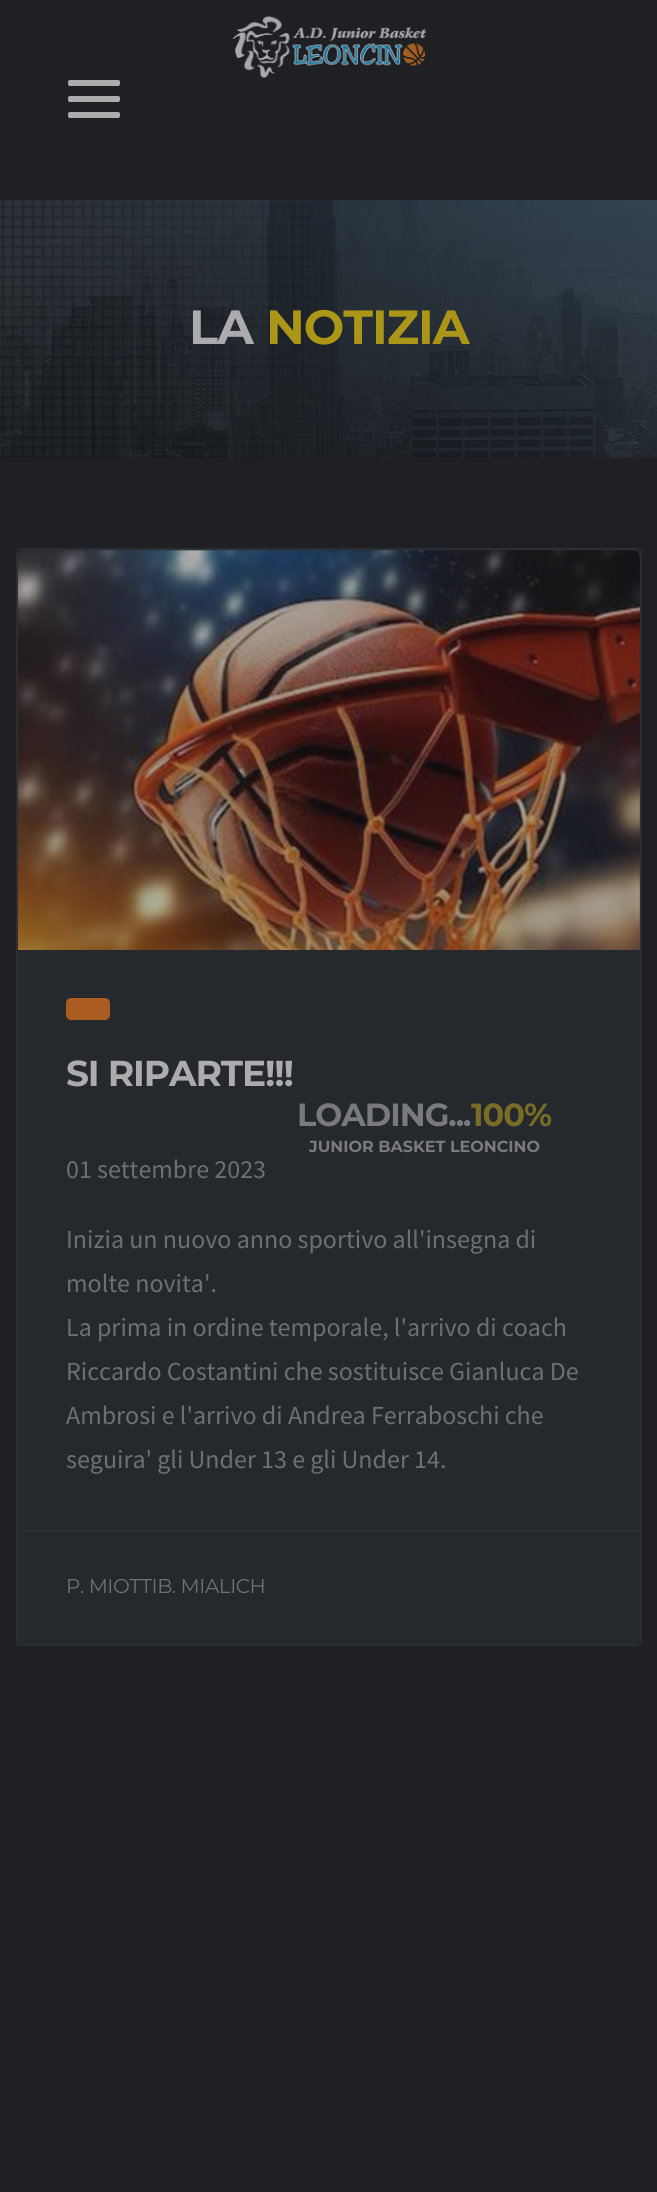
#include <cairo.h>
#include <math.h>
#include <stddef.h>


static void rgb(cairo_t *cr, int r, int g, int b)
{
	cairo_set_source_rgb(cr, r / 255.0, g / 255.0, b / 255.0);
}

static void face(cairo_t *cr, const char *family, double size, int italic, int bold)
{
	cairo_select_font_face(cr, family, italic ? CAIRO_FONT_SLANT_ITALIC : CAIRO_FONT_SLANT_NORMAL,
		bold ? CAIRO_FONT_WEIGHT_BOLD : CAIRO_FONT_WEIGHT_NORMAL);
	cairo_set_font_size(cr, size);
}

static void label(cairo_t *cr, double x, double y, const char *s)
{
	cairo_move_to(cr, x, y);
	cairo_show_text(cr, s);
}

static void tracked(cairo_t *cr, double x, double y, const char *s, double letter, double word)
{
	cairo_move_to(cr, x, y);
	while (*s) {
		char ch[5] = {0};
		int n = 0;
		do ch[n++] = *s++; while ((*s & 0xC0) == 0x80);
		cairo_show_text(cr, ch);
		cairo_rel_move_to(cr, letter + word * (*ch == ' '), 0);
	}
}

static void rect(cairo_t *cr, double x, double y, double w, double h)
{
	cairo_rectangle(cr, x, y, w, h);
	cairo_fill(cr);
}

static void rrect(cairo_t *cr, double x, double y, double w, double h, double r)
{
	cairo_new_sub_path(cr);
	cairo_arc(cr, x + w - r, y + h - r, r, 0, M_PI / 2);
	cairo_arc(cr, x + r, y + h - r, r, M_PI / 2, M_PI);
	cairo_arc(cr, x + r, y + r, r, M_PI, 1.5 * M_PI);
	cairo_arc(cr, x + w - r, y + r, r, 1.5 * M_PI, 2 * M_PI);
	cairo_close_path(cr);
}

static void image(cairo_t *cr, const char *path, double x, double y, double w, double h)
{
	cairo_surface_t *image = cairo_image_surface_create_from_png(path);
	cairo_save(cr);
	cairo_set_source_surface(cr, image, x, y);
	cairo_rectangle(cr, x, y, w, h);
	cairo_fill(cr);
	cairo_restore(cr);
	cairo_surface_destroy(image);
}

static void draw(cairo_t *cr) {
	rgb(cr, 30, 32, 36);
	cairo_paint(cr);
	image(cr, "image0.png", 233, 15, 194, 63);
	rgb(cr, 172, 172, 174);
	rrect(cr, 68, 80, 52, 6, 2);
	cairo_fill(cr);
	rrect(cr, 68, 96, 52, 6, 2);
	cairo_fill(cr);
	rrect(cr, 68, 112, 52, 6, 2);
	cairo_fill(cr);
	image(cr, "image1.png", 0, 200, 657, 258);
	image(cr, "image2.png", 0, 200, 317, 257);
	face(cr, "Montserrat", 48, 0, 1);
	tracked(cr, 189, 344, "LA", -1, 0);
	rgb(cr, 172, 150, 24);
	tracked(cr, 266, 344, "NOTIZIA", -1, 0);
	rgb(cr, 37, 40, 44);
	rrect(cr, 16, 548, 626, 1098, 8);
	cairo_fill(cr);
	cairo_rectangle(cr, 17, 549, 624, 1096);
	cairo_set_source_rgba(cr, 0.675, 0.675, 0.682, 0.05);
	cairo_stroke(cr);
	image(cr, "image3.png", 18, 550, 622, 400);
	rgb(cr, 172, 91, 33);
	rrect(cr, 66, 998, 44, 22, 5);
	cairo_fill(cr);
	face(cr, "Montserrat", 36, 0, 1);
	rgb(cr, 172, 172, 174);
	tracked(cr, 66, 1086, "SI RIPARTE!!!", -1.1, 0);
	face(cr, "Source Sans Pro", 26, 0, 0);
	rgb(cr, 108, 111, 115);
	label(cr, 66, 1178, "01 settembre 2023");
	label(cr, 66, 1248, "Inizia un nuovo anno sportivo all'insegna di");
	label(cr, 66, 1292, "molte novita'.");
	label(cr, 66, 1336, "La prima in ordine temporale, l'arrivo di coach");
	label(cr, 66, 1380, "Riccardo Costantini che sostituisce Gianluca De");
	label(cr, 66, 1424, "Ambrosi e l'arrivo di Andrea Ferraboschi che");
	label(cr, 66, 1468, "seguira' gli Under 13 e gli Under 14.");
	rgb(cr, 44, 46, 50);
	rect(cr, 18, 1530, 622, 2);
	face(cr, "Montserrat", 20, 0, 0);
	rgb(cr, 108, 111, 115);
	tracked(cr, 66, 1593, "P. MIOTTIB. MIALICH", -0.4, 0);
	face(cr, "Montserrat", 32, 0, 1);
	rgb(cr, 120, 122, 125);
	tracked(cr, 297, 1126, "LOADING...", -1, 0);
	rgb(cr, 120, 109, 37);
	tracked(cr, 471, 1126, "100%", -1, 0);
	face(cr, "Montserrat", 16, 0, 1);
	rgb(cr, 120, 122, 125);
	label(cr, 309, 1152, "JUNIOR BASKET LEONCINO");
}

int main(void) {
	cairo_surface_t *surface = cairo_image_surface_create(CAIRO_FORMAT_RGB24, 657, 2192);
	cairo_t *cr = cairo_create(surface);
	cairo_font_options_t *options = cairo_font_options_create();
	cairo_font_options_set_hint_metrics(options, CAIRO_HINT_METRICS_OFF);
	cairo_font_options_set_hint_style(options, CAIRO_HINT_STYLE_NONE);
	cairo_set_font_options(cr, options);
	cairo_set_miter_limit(cr, 4);
	draw(cr);
	cairo_surface_write_to_png(surface, "render.png");
	cairo_font_options_destroy(options);
	cairo_destroy(cr);
	cairo_surface_destroy(surface);
	return 0;
}
